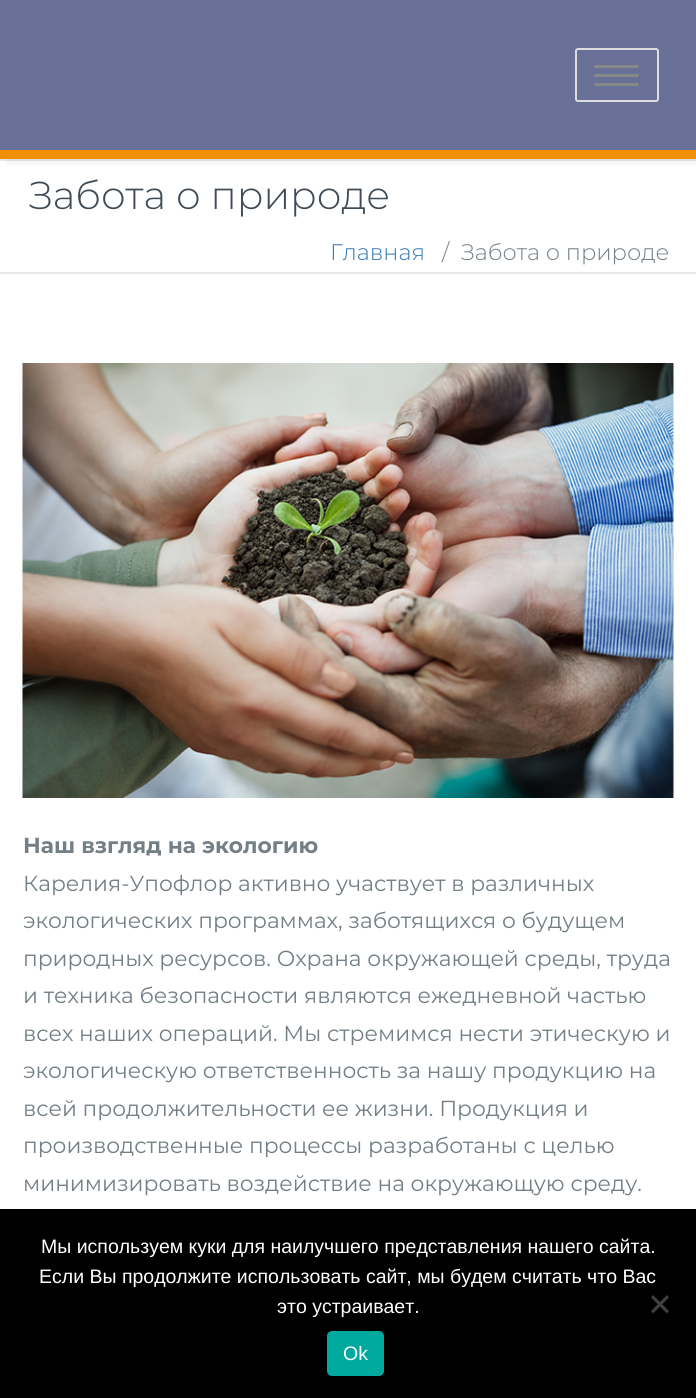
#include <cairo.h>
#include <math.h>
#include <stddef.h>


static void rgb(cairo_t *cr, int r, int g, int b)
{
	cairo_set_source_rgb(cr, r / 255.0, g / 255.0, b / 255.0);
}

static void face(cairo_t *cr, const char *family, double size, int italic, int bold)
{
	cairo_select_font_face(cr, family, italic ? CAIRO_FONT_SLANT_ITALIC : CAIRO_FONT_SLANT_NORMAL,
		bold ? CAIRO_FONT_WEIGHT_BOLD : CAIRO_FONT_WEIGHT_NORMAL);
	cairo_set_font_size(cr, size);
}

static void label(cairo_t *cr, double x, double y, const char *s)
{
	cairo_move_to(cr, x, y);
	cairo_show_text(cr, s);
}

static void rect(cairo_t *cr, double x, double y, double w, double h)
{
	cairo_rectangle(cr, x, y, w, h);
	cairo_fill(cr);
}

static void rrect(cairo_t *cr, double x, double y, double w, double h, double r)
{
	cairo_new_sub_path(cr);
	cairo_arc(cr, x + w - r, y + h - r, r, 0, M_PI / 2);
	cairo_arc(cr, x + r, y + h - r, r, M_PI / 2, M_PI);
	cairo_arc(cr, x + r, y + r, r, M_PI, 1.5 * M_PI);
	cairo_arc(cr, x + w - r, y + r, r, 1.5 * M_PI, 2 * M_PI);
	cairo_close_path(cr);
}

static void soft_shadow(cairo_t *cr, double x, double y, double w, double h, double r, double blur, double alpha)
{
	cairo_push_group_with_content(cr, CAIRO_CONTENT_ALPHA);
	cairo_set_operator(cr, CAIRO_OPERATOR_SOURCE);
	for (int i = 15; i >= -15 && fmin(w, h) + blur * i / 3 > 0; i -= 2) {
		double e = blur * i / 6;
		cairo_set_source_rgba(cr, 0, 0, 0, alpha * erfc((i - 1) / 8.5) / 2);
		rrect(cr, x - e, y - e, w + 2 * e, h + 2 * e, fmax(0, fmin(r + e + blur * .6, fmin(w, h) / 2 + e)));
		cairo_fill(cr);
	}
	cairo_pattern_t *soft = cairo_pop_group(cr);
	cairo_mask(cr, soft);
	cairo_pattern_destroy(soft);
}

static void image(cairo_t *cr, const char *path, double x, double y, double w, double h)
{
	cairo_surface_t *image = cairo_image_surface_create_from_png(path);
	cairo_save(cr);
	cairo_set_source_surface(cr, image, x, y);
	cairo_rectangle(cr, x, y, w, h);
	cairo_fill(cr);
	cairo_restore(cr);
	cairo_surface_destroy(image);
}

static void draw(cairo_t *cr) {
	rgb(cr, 255, 255, 255);
	cairo_paint(cr);
	rgb(cr, 228, 232, 234);
	rect(cr, 0, 159, 696, 2);
	rgb(cr, 0, 0, 0);
	soft_shadow(cr, 6, 6, 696, 159, 0, 2, 0.04);
	rgb(cr, 104, 112, 151);
	rect(cr, 0, 0, 696, 150);
	rgb(cr, 240, 144, 7);
	rect(cr, 0, 150, 696, 9);
	rrect(cr, 576, 49, 82, 52, 2);
	rgb(cr, 221, 221, 221);
	cairo_stroke(cr);
	rgb(cr, 136, 136, 136);
	rrect(cr, 594, 65, 45, 3, 1.5);
	cairo_fill(cr);
	rrect(cr, 594, 74, 45, 3, 1.5);
	cairo_fill(cr);
	rrect(cr, 594, 83, 45, 3, 1.5);
	cairo_fill(cr);
	rgb(cr, 228, 232, 234);
	rect(cr, 0, 272, 696, 2);
	face(cr, "Montserrat Light", 39, 0, 0);
	rgb(cr, 64, 75, 86);
	label(cr, 29, 209, "Забота о природе");
	face(cr, "Montserrat Light", 22.5, 0, 0);
	rgb(cr, 51, 122, 183);
	label(cr, 330, 260, "Главная");
	rgb(cr, 115, 127, 133);
	label(cr, 442, 260, "/");
	label(cr, 461, 260, "Забота о природе");
	image(cr, "image0.png", 22, 363, 652, 435);
	face(cr, "Montserrat", 21.75, 0, 1);
	label(cr, 23, 853, "Наш взгляд на экологию");
	face(cr, "Montserrat", 21.75, 0, 0);
	label(cr, 23, 891, "Карелия-Упофлор активно участвует в различных");
	label(cr, 23, 928, "экологических программах, заботящихся о будущем");
	label(cr, 23, 966, "природных ресурсов. Охрана окружающей среды, труда");
	label(cr, 23, 1003, "и техника безопасности являются ежедневной частью");
	label(cr, 23, 1041, "всех наших операций. Мы стремимся нести этическую и");
	label(cr, 23, 1078, "экологическую ответственность за нашу продукцию на");
	label(cr, 23, 1116, "всей продолжительности ее жизни. Продукция и");
	label(cr, 23, 1153, "производственные процессы разработаны с целью");
	label(cr, 23, 1191, "минимизировать воздействие на окружающую среду.");
	rgb(cr, 0, 0, 0);
	rect(cr, 0, 1209, 696, 189);
	face(cr, "Liberation Sans", 19.5, 0, 0);
	rgb(cr, 255, 255, 255);
	label(cr, 41, 1253, "Мы используем куки для наилучшего представления нашего сайта.");
	label(cr, 39, 1283, "Если Вы продолжите использовать сайт, мы будем считать что Вас");
	label(cr, 277, 1313, "это устраивает.");
	rgb(cr, 64, 64, 64);
	cairo_new_path(cr);
	cairo_move_to(cr, 667, 1295);
	cairo_line_to(cr, 669, 1297.5);
	cairo_line_to(cr, 653, 1313.5);
	cairo_line_to(cr, 651, 1311);
	cairo_close_path(cr);
	cairo_fill(cr);
	cairo_new_path(cr);
	cairo_move_to(cr, 651, 1297.5);
	cairo_line_to(cr, 653, 1295);
	cairo_line_to(cr, 669, 1311);
	cairo_line_to(cr, 667, 1313.5);
	cairo_close_path(cr);
	cairo_fill(cr);
	rgb(cr, 0, 169, 157);
	rrect(cr, 327, 1331, 57, 45, 5);
	cairo_fill(cr);
	rgb(cr, 255, 255, 255);
	label(cr, 343, 1360, "Ok");
}

int main(void) {
	cairo_surface_t *surface = cairo_image_surface_create(CAIRO_FORMAT_RGB24, 696, 1398);
	cairo_t *cr = cairo_create(surface);
	cairo_font_options_t *options = cairo_font_options_create();
	cairo_font_options_set_hint_metrics(options, CAIRO_HINT_METRICS_OFF);
	cairo_font_options_set_hint_style(options, CAIRO_HINT_STYLE_NONE);
	cairo_set_font_options(cr, options);
	cairo_set_miter_limit(cr, 4);
	draw(cr);
	cairo_surface_write_to_png(surface, "render.png");
	cairo_font_options_destroy(options);
	cairo_destroy(cr);
	cairo_surface_destroy(surface);
	return 0;
}
